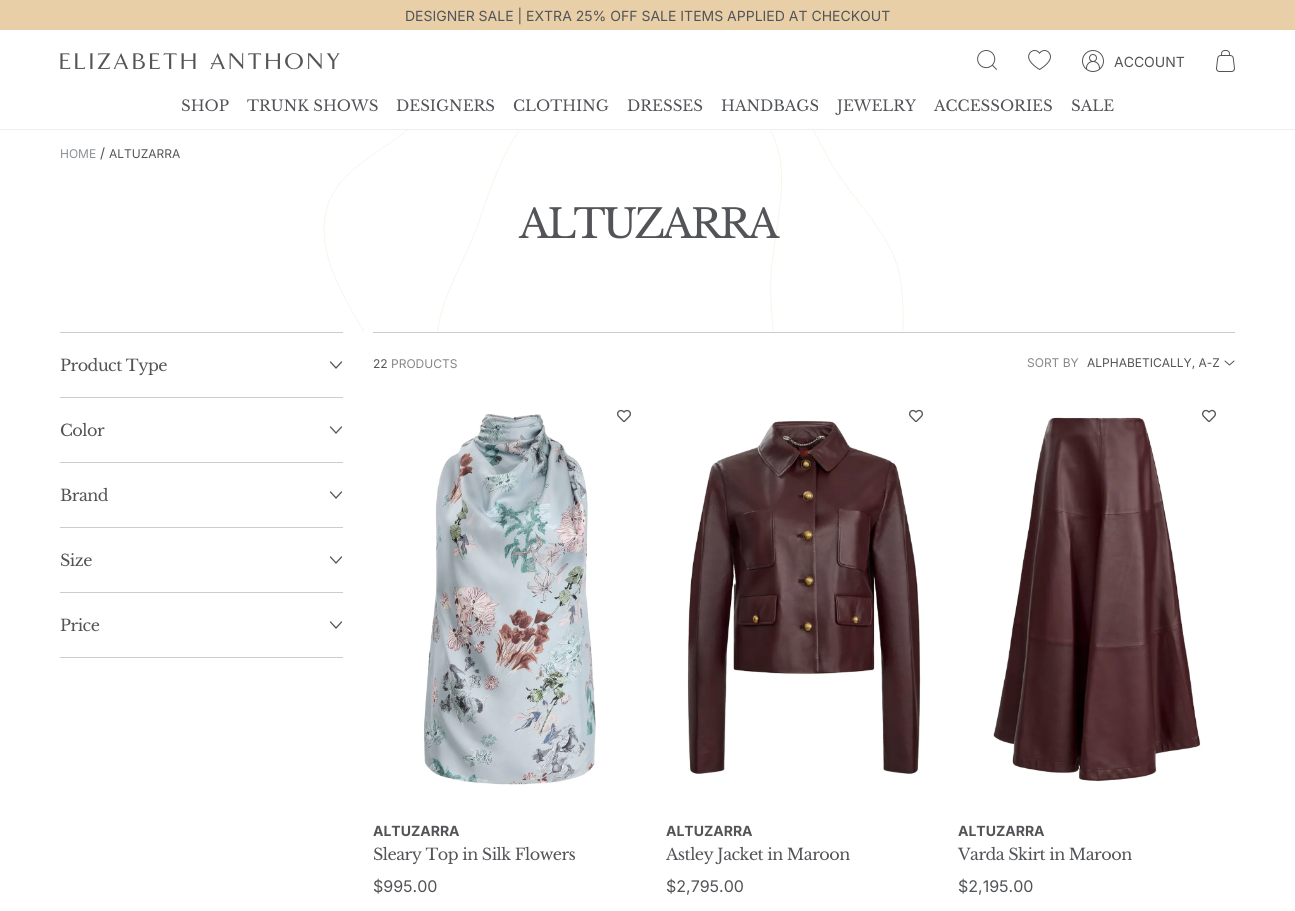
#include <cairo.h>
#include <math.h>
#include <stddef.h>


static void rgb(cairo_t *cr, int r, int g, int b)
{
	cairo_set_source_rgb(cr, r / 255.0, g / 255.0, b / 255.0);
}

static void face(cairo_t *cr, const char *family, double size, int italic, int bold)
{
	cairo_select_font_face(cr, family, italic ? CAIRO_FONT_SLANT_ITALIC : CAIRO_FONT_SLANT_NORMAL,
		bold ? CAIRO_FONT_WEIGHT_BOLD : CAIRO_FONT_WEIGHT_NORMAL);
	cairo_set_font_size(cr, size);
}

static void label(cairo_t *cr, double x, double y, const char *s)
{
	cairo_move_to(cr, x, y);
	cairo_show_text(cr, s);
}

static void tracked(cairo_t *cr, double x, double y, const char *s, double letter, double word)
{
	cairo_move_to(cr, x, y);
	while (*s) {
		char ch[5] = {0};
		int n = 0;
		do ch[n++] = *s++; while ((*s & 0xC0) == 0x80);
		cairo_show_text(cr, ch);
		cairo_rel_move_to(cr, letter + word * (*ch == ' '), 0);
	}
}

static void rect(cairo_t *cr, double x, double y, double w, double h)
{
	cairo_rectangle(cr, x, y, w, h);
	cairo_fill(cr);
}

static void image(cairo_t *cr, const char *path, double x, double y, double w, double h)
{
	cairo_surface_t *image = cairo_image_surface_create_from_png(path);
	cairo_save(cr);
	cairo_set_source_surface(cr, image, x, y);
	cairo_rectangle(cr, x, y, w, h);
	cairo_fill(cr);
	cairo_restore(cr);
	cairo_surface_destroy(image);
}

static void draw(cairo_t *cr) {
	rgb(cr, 255, 255, 255);
	cairo_paint(cr);
	rgb(cr, 233, 207, 168);
	rect(cr, 0, 0, 1295, 30);
	face(cr, "Inter", 14, 0, 0);
	rgb(cr, 82, 84, 87);
	label(cr, 405, 21, "DESIGNER SALE | EXTRA 25% OFF SALE ITEMS APPLIED AT CHECKOUT");
	rgb(cr, 238, 238, 238);
	rect(cr, 0, 129, 1295, 1);
	image(cr, "image0.png", 60, 53, 280, 17);
	image(cr, "image1.png", 977, 50, 20, 20);
	image(cr, "image2.png", 1028, 50, 23, 20);
	image(cr, "image3.png", 1082, 50, 22, 22);
	rgb(cr, 82, 84, 87);
	label(cr, 1114, 67, "ACCOUNT");
	image(cr, "image4.png", 1216, 50, 19, 22);
	face(cr, "Libre Baskerville", 15, 0, 0);
	label(cr, 181, 111, "SHOP");
	label(cr, 247, 111, "TRUNK SHOWS");
	label(cr, 396, 111, "DESIGNERS");
	label(cr, 513, 111, "CLOTHING");
	label(cr, 627, 111, "DRESSES");
	label(cr, 721, 111, "HANDBAGS");
	label(cr, 837, 111, "JEWELRY");
	label(cr, 934, 111, "ACCESSORIES");
	label(cr, 1071, 111, "SALE");
	face(cr, "Inter", 12, 0, 0);
	rgb(cr, 141, 144, 149);
	label(cr, 60, 158, "HOME");
	face(cr, "Inter", 14, 0, 0);
	rgb(cr, 82, 84, 87);
	label(cr, 100, 158, "/");
	face(cr, "Inter", 12, 0, 0);
	label(cr, 109, 158, "ALTUZARRA");
	image(cr, "image5.png", 323, 130, 581, 202);
	face(cr, "Libre Baskerville", 40, 0, 0);
	tracked(cr, 519, 238, "ALTUZARRA", -2.75, 0);
	rgb(cr, 203, 204, 205);
	rect(cr, 60, 332, 283, 1);
	rect(cr, 60, 397, 283, 1);
	face(cr, "Libre Baskerville", 16, 0, 0);
	rgb(cr, 82, 84, 87);
	tracked(cr, 60, 371, "Product Type", -0.5, 0);
	cairo_new_path(cr);
	cairo_move_to(cr, 341.5, 362);
	cairo_line_to(cr, 336, 368);
	cairo_line_to(cr, 330.5, 362);
	cairo_set_line_width(cr, 1.3);
	cairo_set_line_cap(cr, CAIRO_LINE_CAP_ROUND);
	cairo_stroke(cr);
	rgb(cr, 203, 204, 205);
	rect(cr, 60, 462, 283, 1);
	rgb(cr, 82, 84, 87);
	tracked(cr, 60, 436, "Color", -0.5, 0);
	cairo_new_path(cr);
	cairo_move_to(cr, 341.5, 427);
	cairo_line_to(cr, 336, 433);
	cairo_line_to(cr, 330.5, 427);
	cairo_stroke(cr);
	rgb(cr, 203, 204, 205);
	rect(cr, 60, 527, 283, 1);
	rgb(cr, 82, 84, 87);
	tracked(cr, 60, 501, "Brand", -0.5, 0);
	cairo_new_path(cr);
	cairo_move_to(cr, 341.5, 492);
	cairo_line_to(cr, 336, 498);
	cairo_line_to(cr, 330.5, 492);
	cairo_stroke(cr);
	rgb(cr, 203, 204, 205);
	rect(cr, 60, 592, 283, 1);
	rgb(cr, 82, 84, 87);
	tracked(cr, 60, 566, "Size", -0.5, 0);
	cairo_new_path(cr);
	cairo_move_to(cr, 341.5, 557);
	cairo_line_to(cr, 336, 563);
	cairo_line_to(cr, 330.5, 557);
	cairo_stroke(cr);
	rgb(cr, 203, 204, 205);
	rect(cr, 60, 657, 283, 1);
	rgb(cr, 82, 84, 87);
	tracked(cr, 60, 631, "Price", -0.5, 0);
	cairo_new_path(cr);
	cairo_move_to(cr, 341.5, 622);
	cairo_line_to(cr, 336, 628);
	cairo_line_to(cr, 330.5, 622);
	cairo_stroke(cr);
	rgb(cr, 203, 204, 205);
	rect(cr, 373, 332, 862, 1);
	face(cr, "Inter", 12, 0, 0);
	rgb(cr, 82, 84, 87);
	label(cr, 373, 368, "22");
	rgb(cr, 134, 135, 137);
	label(cr, 391, 368, "PRODUCTS");
	label(cr, 1027, 367, "SORT BY");
	rgb(cr, 82, 84, 87);
	label(cr, 1087, 367, "ALPHABETICALLY, A-Z");
	cairo_new_path(cr);
	cairo_move_to(cr, 1234, 361);
	cairo_line_to(cr, 1229.5, 365);
	cairo_line_to(cr, 1225, 361);
	cairo_set_line_width(cr, 1);
	cairo_stroke(cr);
	image(cr, "image6.png", 617, 409, 14, 14);
	image(cr, "image7.png", 423, 414, 173, 371);
	face(cr, "Inter", 14, 0, 1);
	label(cr, 373, 836, "ALTUZARRA");
	face(cr, "Libre Baskerville", 16, 0, 0);
	tracked(cr, 373, 860, "Sleary Top in Silk Flowers", -0.5, 0);
	face(cr, "Inter", 16, 0, 0);
	label(cr, 373, 892, "$995.00");
	image(cr, "image8.png", 687, 420, 234, 354);
	image(cr, "image6.png", 909, 409, 14, 14);
	face(cr, "Inter", 14, 0, 1);
	label(cr, 666, 836, "ALTUZARRA");
	face(cr, "Libre Baskerville", 16, 0, 0);
	tracked(cr, 666, 860, "Astley Jacket in Maroon", -0.5, 0);
	face(cr, "Inter", 16, 0, 0);
	label(cr, 666, 892, "$2,795.00");
	image(cr, "image6.png", 1202, 409, 14, 14);
	image(cr, "image9.png", 993, 417, 208, 365);
	face(cr, "Inter", 14, 0, 1);
	label(cr, 958, 836, "ALTUZARRA");
	face(cr, "Libre Baskerville", 16, 0, 0);
	tracked(cr, 958, 860, "Varda Skirt in Maroon", -0.5, 0);
	face(cr, "Inter", 16, 0, 0);
	label(cr, 958, 892, "$2,195.00");
}

int main(void) {
	cairo_surface_t *surface = cairo_image_surface_create(CAIRO_FORMAT_RGB24, 1295, 911);
	cairo_t *cr = cairo_create(surface);
	cairo_font_options_t *options = cairo_font_options_create();
	cairo_font_options_set_hint_metrics(options, CAIRO_HINT_METRICS_OFF);
	cairo_font_options_set_hint_style(options, CAIRO_HINT_STYLE_NONE);
	cairo_set_font_options(cr, options);
	cairo_set_miter_limit(cr, 4);
	draw(cr);
	cairo_surface_write_to_png(surface, "render.png");
	cairo_font_options_destroy(options);
	cairo_destroy(cr);
	cairo_surface_destroy(surface);
	return 0;
}
